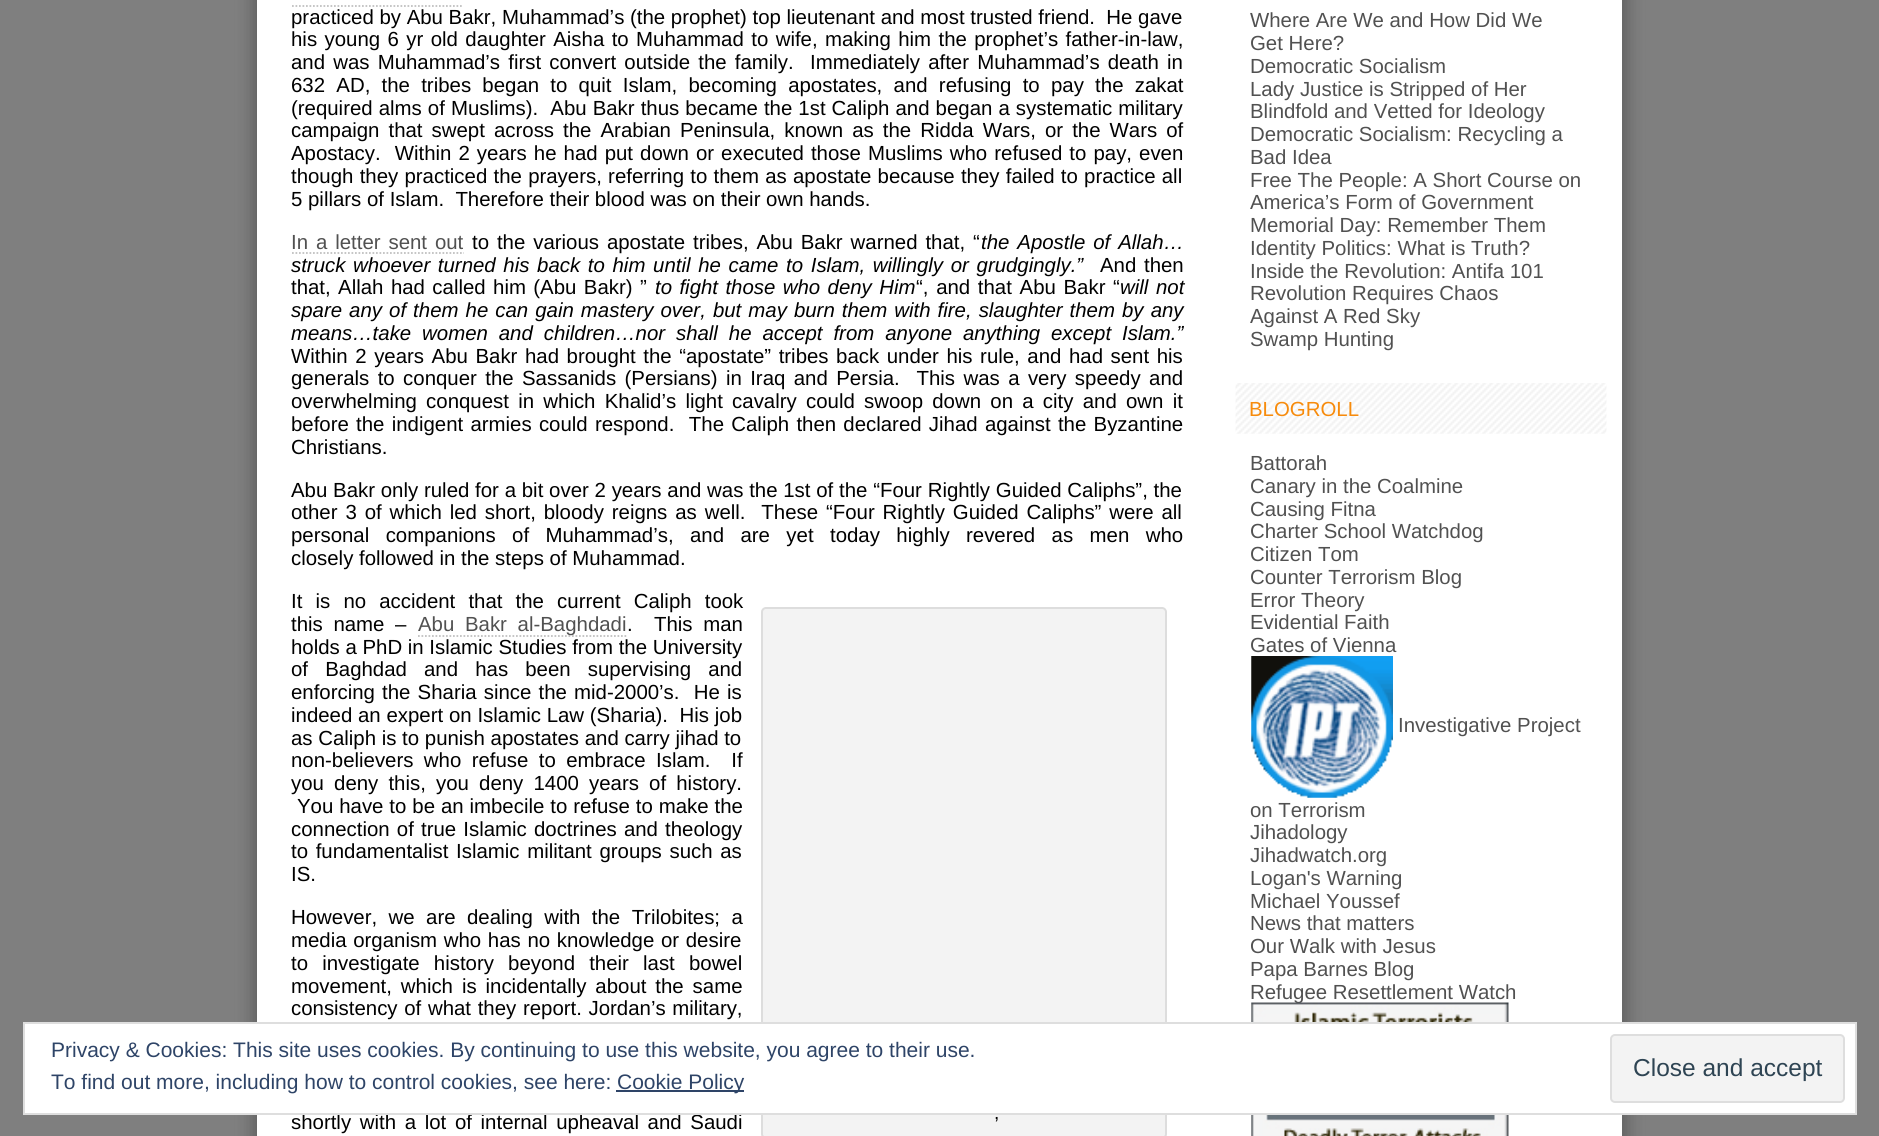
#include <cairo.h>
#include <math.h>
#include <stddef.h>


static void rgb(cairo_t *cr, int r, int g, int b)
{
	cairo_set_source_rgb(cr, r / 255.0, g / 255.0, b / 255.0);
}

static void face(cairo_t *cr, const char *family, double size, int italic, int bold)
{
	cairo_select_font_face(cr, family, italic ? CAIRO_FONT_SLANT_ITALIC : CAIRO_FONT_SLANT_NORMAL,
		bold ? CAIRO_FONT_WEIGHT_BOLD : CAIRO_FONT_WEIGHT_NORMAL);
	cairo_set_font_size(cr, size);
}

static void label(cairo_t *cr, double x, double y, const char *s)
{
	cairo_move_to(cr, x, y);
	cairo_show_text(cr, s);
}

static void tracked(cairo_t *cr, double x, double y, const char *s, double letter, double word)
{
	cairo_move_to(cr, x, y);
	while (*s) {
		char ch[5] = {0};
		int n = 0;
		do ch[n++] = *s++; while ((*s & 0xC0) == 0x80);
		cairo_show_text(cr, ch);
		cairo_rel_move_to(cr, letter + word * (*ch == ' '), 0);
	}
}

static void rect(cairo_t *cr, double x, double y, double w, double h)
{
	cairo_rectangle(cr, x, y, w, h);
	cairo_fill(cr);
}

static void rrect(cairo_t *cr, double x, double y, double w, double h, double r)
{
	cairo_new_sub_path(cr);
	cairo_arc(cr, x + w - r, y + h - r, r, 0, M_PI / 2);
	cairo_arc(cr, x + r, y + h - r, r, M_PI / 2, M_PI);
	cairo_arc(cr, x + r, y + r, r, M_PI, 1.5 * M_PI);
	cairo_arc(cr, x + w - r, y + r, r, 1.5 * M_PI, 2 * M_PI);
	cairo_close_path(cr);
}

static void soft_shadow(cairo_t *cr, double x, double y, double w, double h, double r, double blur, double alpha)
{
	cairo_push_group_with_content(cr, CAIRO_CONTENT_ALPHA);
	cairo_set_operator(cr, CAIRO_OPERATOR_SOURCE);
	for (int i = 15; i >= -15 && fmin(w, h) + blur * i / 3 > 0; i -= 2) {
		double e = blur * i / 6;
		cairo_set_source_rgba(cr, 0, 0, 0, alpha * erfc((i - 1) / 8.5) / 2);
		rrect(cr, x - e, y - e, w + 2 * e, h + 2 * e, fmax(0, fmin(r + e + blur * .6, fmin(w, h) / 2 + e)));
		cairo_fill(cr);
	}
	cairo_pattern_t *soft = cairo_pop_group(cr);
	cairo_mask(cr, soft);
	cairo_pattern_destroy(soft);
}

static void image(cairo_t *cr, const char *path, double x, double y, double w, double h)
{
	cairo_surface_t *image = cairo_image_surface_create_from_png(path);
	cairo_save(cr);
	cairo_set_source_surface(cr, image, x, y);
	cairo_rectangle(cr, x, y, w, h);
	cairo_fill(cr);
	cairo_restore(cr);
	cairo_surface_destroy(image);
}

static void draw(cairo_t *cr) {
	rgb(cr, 127, 127, 127);
	cairo_paint(cr);
	rgb(cr, 90, 90, 90);
	soft_shadow(cr, 254, -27, 1372, 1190, 0, 9, 1);
	rgb(cr, 255, 255, 255);
	rect(cr, 257, 0, 1365, 1136);
	cairo_new_path(cr);
	cairo_move_to(cr, 292, 6);
	cairo_line_to(cr, 462, 6);
	rgb(cr, 192, 192, 192);
	cairo_set_line_width(cr, 1.8);
	cairo_set_dash(cr, (double[]){1.75, 1.75}, 2, 0);
	cairo_stroke(cr);
	face(cr, "Liberation Sans", 20.4, 0, 0);
	rgb(cr, 0, 0, 0);
	label(cr, 291, 24, "practiced by Abu Bakr, Muhammad’s (the prophet) top lieutenant and most trusted friend.  He gave");
	tracked(cr, 291, 46, "his young 6 yr old daughter Aisha to Muhammad to wife, making him the prophet’s father-in-law,", 0, 1.75);
	tracked(cr, 291, 69, "and was Muhammad’s first convert outside the family.  Immediately after Muhammad’s death in", 0, 2.5);
	tracked(cr, 291, 92, "632 AD, the tribes began to quit Islam, becoming apostates, and refusing to pay the zakat", 0, 5.6);
	tracked(cr, 291, 115, "(required alms of Muslims).  Abu Bakr thus became the 1st Caliph and began a systematic military", 0, 0.4);
	tracked(cr, 291, 137, "campaign that swept across the Arabian Peninsula, known as the Ridda Wars, or the Wars of", 0, 3.4);
	tracked(cr, 291, 160, "Apostacy.  Within 2 years he had put down or executed those Muslims who refused to pay, even", 0, 1.4);
	tracked(cr, 291, 183, "though they practiced the prayers, referring to them as apostate because they failed to practice all", 0, 0.6);
	label(cr, 291, 206, "5 pillars of Islam.  Therefore their blood was on their own hands.");
	rgb(cr, 81, 81, 81);
	tracked(cr, 291, 249, "In a letter sent out", 0, 2.25);
	cairo_new_path(cr);
	cairo_move_to(cr, 292, 253);
	cairo_line_to(cr, 464, 253);
	rgb(cr, 192, 192, 192);
	cairo_stroke(cr);
	rgb(cr, 0, 0, 0);
	tracked(cr, 472, 249, "to the various apostate tribes, Abu Bakr warned that, “", 0, 2.25);
	face(cr, "Liberation Sans", 20.4, 1, 0);
	tracked(cr, 981, 249, "the Apostle of Allah…", 0, 2.25);
	tracked(cr, 291, 272, "struck whoever turned his back to him until he came to Islam, willingly or grudgingly.”", 0, 2);
	face(cr, "Liberation Sans", 20.4, 0, 0);
	tracked(cr, 1100, 272, "And then", 0, 2);
	tracked(cr, 291, 294, "that, Allah had called him (Abu Bakr) ”", 0, 1.75);
	face(cr, "Liberation Sans", 20.4, 1, 0);
	tracked(cr, 655, 294, "to fight those who deny Him", 0, 1.75);
	face(cr, "Liberation Sans", 20.4, 0, 0);
	tracked(cr, 916, 294, "“, and that Abu Bakr “", 0, 2);
	face(cr, "Liberation Sans", 20.4, 1, 0);
	tracked(cr, 1120, 294, "will not", 0, 2);
	tracked(cr, 291, 317, "spare any of them he can gain mastery over, but may burn them with fire, slaughter them by any", 0, 1.4);
	tracked(cr, 291, 340, "means…take women and children…nor shall he accept from anyone anything except Islam.”", 0, 5.25);
	face(cr, "Liberation Sans", 20.4, 0, 0);
	tracked(cr, 291, 363, "Within 2 years Abu Bakr had brought the “apostate” tribes back under his rule, and had sent his", 0, 1.9);
	tracked(cr, 291, 385, "generals to conquer the Sassanids (Persians) in Iraq and Persia.  This was a very speedy and", 0, 2.75);
	tracked(cr, 291, 408, "overwhelming conquest in which Khalid’s light cavalry could swoop down on a city and own it", 0, 3.6);
	tracked(cr, 291, 431, "before the indigent armies could respond.  The Caliph then declared Jihad against the Byzantine", 0, 1.6);
	label(cr, 291, 454, "Christians.");
	tracked(cr, 291, 497, "Abu Bakr only ruled for a bit over 2 years and was the 1st of the “Four Rightly Guided Caliphs”, the", 0, 0.1);
	tracked(cr, 291, 519, "other 3 of which led short, bloody reigns as well.  These “Four Rightly Guided Caliphs” were all", 0, 2.25);
	tracked(cr, 291, 542, "personal companions of Muhammad’s, and are yet today highly revered as men who", 0, 10.75);
	label(cr, 291, 565, "closely followed in the steps of Muhammad.");
	tracked(cr, 291, 608, "It is no accident that the current Caliph took", 0, 7.5);
	tracked(cr, 291, 631, "this name –", 0, 5);
	cairo_new_path(cr);
	cairo_move_to(cr, 418, 636);
	cairo_line_to(cr, 626.5, 636);
	rgb(cr, 192, 192, 192);
	cairo_stroke(cr);
	rgb(cr, 81, 81, 81);
	tracked(cr, 418, 631, "Abu Bakr al-Baghdadi", 0, 5);
	rgb(cr, 0, 0, 0);
	tracked(cr, 627, 631, ".  This man", 0, 5);
	label(cr, 291, 654, "holds a PhD in Islamic Studies from the University");
	tracked(cr, 291, 676, "of Baghdad and has been supervising and", 0, 11.5);
	tracked(cr, 291, 699, "enforcing the Sharia since the mid-2000’s.  He is", 0, 1.5);
	tracked(cr, 291, 722, "indeed an expert on Islamic Law (Sharia).  His job", 0, 0.1);
	label(cr, 291, 745, "as Caliph is to punish apostates and carry jihad to");
	tracked(cr, 291, 767, "non-believers who refuse to embrace Islam.  If", 0, 4.75);
	tracked(cr, 291, 790, "you deny this, you deny 1400 years of history.", 0, 4.5);
	tracked(cr, 297, 813, "You have to be an imbecile to refuse to make the", 0, 0.25);
	tracked(cr, 291, 836, "connection of true Islamic doctrines and theology", 0, 1.5);
	tracked(cr, 291, 858, "to fundamentalist Islamic militant groups such as", 0, 2);
	label(cr, 291, 881, "IS.");
	tracked(cr, 291, 924, "However, we are dealing with the Trilobites; a", 0, 5.75);
	tracked(cr, 291, 947, "media organism who has no knowledge or desire", 0, 1);
	tracked(cr, 291, 970, "to investigate history beyond their last bowel", 0, 8.5);
	tracked(cr, 291, 993, "movement, which is incidentally about the same", 0, 3.25);
	tracked(cr, 291, 1015, "consistency of what they report. Jordan’s military,", 0, 1);
	tracked(cr, 291, 1129, "shortly with a lot of internal upheaval and Saudi", 0, 3);
	rgb(cr, 243, 243, 243);
	rrect(cr, 762, 608, 404, 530, 4);
	cairo_fill_preserve(cr);
	rgb(cr, 221, 221, 221);
	cairo_set_line_width(cr, 2);
	cairo_set_dash(cr, NULL, 0, 0);
	cairo_stroke(cr);
	face(cr, "Liberation Sans", 19, 0, 0);
	rgb(cr, 0, 0, 0);
	label(cr, 994, 1119, ",");
	face(cr, "Liberation Sans", 20.4, 0, 0);
	rgb(cr, 81, 81, 81);
	label(cr, 1250, 27, "Where Are We and How Did We");
	label(cr, 1250, 50, "Get Here?");
	label(cr, 1250, 73, "Democratic Socialism");
	label(cr, 1250, 96, "Lady Justice is Stripped of Her");
	label(cr, 1250, 118, "Blindfold and Vetted for Ideology");
	label(cr, 1250, 141, "Democratic Socialism: Recycling a");
	label(cr, 1250, 164, "Bad Idea");
	label(cr, 1250, 187, "Free The People: A Short Course on");
	label(cr, 1250, 209, "America’s Form of Government");
	label(cr, 1250, 232, "Memorial Day: Remember Them");
	label(cr, 1250, 255, "Identity Politics: What is Truth?");
	label(cr, 1250, 278, "Inside the Revolution: Antifa 101");
	label(cr, 1250, 300, "Revolution Requires Chaos");
	label(cr, 1250, 323, "Against A Red Sky");
	label(cr, 1250, 346, "Swamp Hunting");
	image(cr, "image0.png", 1235, 383, 372, 51);
	rgb(cr, 247, 139, 12);
	label(cr, 1249, 416, "BLOGROLL");
	rgb(cr, 81, 81, 81);
	label(cr, 1250, 470, "Battorah");
	label(cr, 1250, 493, "Canary in the Coalmine");
	label(cr, 1250, 516, "Causing Fitna");
	label(cr, 1250, 538, "Charter School Watchdog");
	label(cr, 1250, 561, "Citizen Tom");
	label(cr, 1250, 584, "Counter Terrorism Blog");
	label(cr, 1250, 607, "Error Theory");
	label(cr, 1250, 629, "Evidential Faith");
	label(cr, 1250, 652, "Gates of Vienna");
	image(cr, "image1.png", 1251, 656, 142, 142);
	label(cr, 1398, 732, "Investigative Project");
	label(cr, 1250, 817, "on Terrorism");
	label(cr, 1250, 839, "Jihadology");
	label(cr, 1250, 862, "Jihadwatch.org");
	label(cr, 1250, 885, "Logan's Warning");
	label(cr, 1250, 908, "Michael Youssef");
	label(cr, 1250, 930, "News that matters");
	label(cr, 1250, 953, "Our Walk with Jesus");
	label(cr, 1250, 976, "Papa Barnes Blog");
	label(cr, 1250, 999, "Refugee Resettlement Watch");
	image(cr, "image2.png", 1251, 1002, 258, 134);
	rgb(cr, 255, 255, 255);
	cairo_rectangle(cr, 24, 1023, 1832, 91);
	cairo_fill_preserve(cr);
	rgb(cr, 222, 222, 222);
	cairo_stroke(cr);
	face(cr, "Liberation Sans", 21, 0, 0);
	rgb(cr, 46, 68, 103);
	label(cr, 51, 1057, "Privacy & Cookies: This site uses cookies. By continuing to use this website, you agree to their use.");
	label(cr, 51, 1089, "To find out more, including how to control cookies, see here:");
	rect(cr, 616, 1090, 128, 2);
	label(cr, 617, 1089, "Cookie Policy");
	rgb(cr, 243, 243, 243);
	rrect(cr, 1611, 1035, 233, 67, 4);
	cairo_fill_preserve(cr);
	rgb(cr, 222, 222, 222);
	cairo_stroke(cr);
	face(cr, "Liberation Sans", 24.5, 0, 0);
	rgb(cr, 46, 68, 83);
	label(cr, 1633, 1076, "Close and accept");
}

int main(void) {
	cairo_surface_t *surface = cairo_image_surface_create(CAIRO_FORMAT_RGB24, 1879, 1136);
	cairo_t *cr = cairo_create(surface);
	cairo_font_options_t *options = cairo_font_options_create();
	cairo_font_options_set_hint_metrics(options, CAIRO_HINT_METRICS_OFF);
	cairo_font_options_set_hint_style(options, CAIRO_HINT_STYLE_NONE);
	cairo_set_font_options(cr, options);
	cairo_set_miter_limit(cr, 4);
	draw(cr);
	cairo_surface_write_to_png(surface, "render.png");
	cairo_font_options_destroy(options);
	cairo_destroy(cr);
	cairo_surface_destroy(surface);
	return 0;
}
